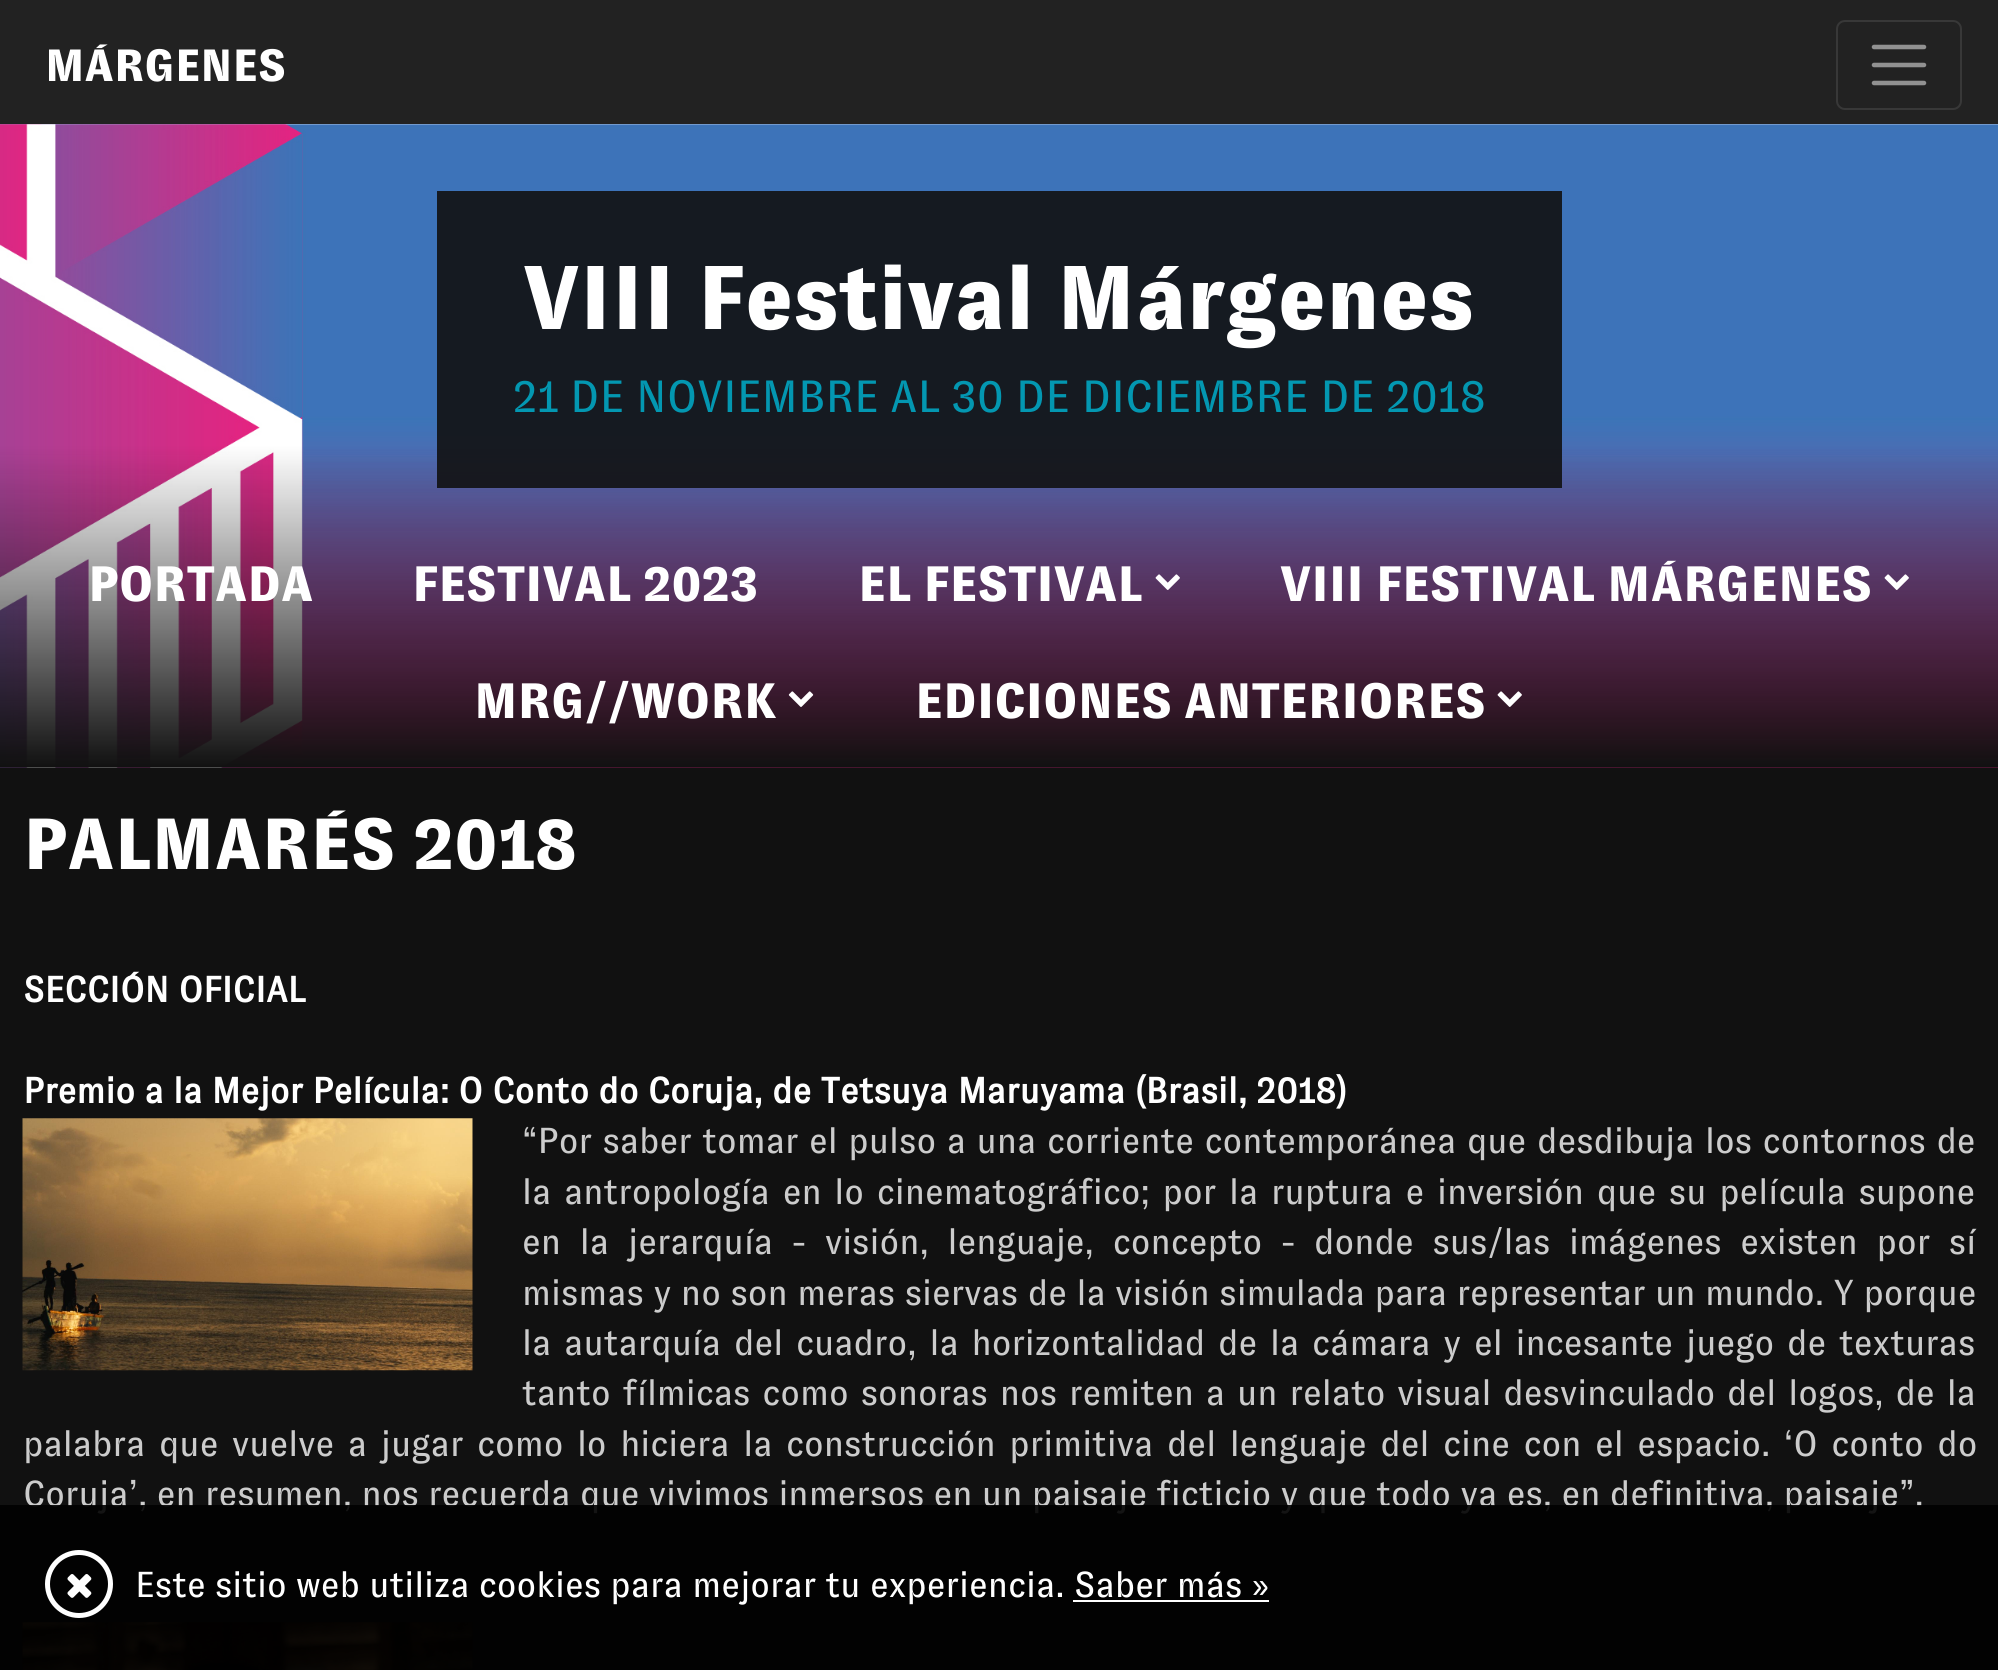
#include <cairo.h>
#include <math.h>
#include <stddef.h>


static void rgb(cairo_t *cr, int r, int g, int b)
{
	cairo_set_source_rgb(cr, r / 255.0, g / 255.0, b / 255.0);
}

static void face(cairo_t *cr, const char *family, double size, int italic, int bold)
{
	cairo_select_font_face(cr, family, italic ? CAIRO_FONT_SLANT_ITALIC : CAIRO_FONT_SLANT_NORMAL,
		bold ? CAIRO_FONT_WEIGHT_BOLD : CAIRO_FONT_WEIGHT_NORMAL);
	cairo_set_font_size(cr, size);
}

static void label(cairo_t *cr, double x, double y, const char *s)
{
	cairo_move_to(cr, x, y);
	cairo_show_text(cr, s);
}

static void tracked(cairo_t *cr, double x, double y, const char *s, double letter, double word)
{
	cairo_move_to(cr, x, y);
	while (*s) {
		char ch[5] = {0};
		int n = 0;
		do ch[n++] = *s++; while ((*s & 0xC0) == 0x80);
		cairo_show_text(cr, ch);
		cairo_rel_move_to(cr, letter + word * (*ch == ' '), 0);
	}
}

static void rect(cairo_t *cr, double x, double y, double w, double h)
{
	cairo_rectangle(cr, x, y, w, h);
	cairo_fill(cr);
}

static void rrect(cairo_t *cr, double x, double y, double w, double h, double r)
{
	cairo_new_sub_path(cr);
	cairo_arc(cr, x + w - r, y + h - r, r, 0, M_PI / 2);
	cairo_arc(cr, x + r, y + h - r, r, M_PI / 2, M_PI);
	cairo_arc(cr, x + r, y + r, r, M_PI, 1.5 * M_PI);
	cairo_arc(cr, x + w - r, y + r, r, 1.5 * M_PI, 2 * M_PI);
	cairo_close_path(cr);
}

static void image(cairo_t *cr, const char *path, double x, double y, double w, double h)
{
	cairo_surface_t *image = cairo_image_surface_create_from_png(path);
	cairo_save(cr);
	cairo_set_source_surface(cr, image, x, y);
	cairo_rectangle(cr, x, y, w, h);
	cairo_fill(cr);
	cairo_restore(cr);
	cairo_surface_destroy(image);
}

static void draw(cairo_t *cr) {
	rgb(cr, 17, 17, 17);
	cairo_paint(cr);
	rgb(cr, 34, 34, 34);
	rect(cr, 0, 0, 1998, 124);
	face(cr, "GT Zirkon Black", 45, 0, 0);
	rgb(cr, 255, 255, 255);
	label(cr, 45, 81, "MÁRGENES");
	rrect(cr, 1837, 21, 124, 88, 8);
	rgb(cr, 56, 56, 56);
	cairo_stroke(cr);
	cairo_new_path(cr);
	cairo_move_to(cr, 1874, 47);
	cairo_line_to(cr, 1924, 47);
	cairo_move_to(cr, 1874, 65);
	cairo_line_to(cr, 1924, 65);
	cairo_move_to(cr, 1874, 83);
	cairo_line_to(cr, 1924, 83);
	rgb(cr, 145, 145, 145);
	cairo_set_line_width(cr, 4.5);
	cairo_set_line_cap(cr, CAIRO_LINE_CAP_ROUND);
	cairo_stroke(cr);
	image(cr, "image0.png", 0, 124, 1998, 644);
	cairo_set_source_rgba(cr, 0.067, 0.067, 0.067, 0.9);
	rect(cr, 437, 191, 1125, 297);
	face(cr, "GT Zirkon Black", 90, 0, 0);
	rgb(cr, 255, 255, 255);
	label(cr, 523, 329, "VIII Festival Márgenes");
	face(cr, "GT Zirkon", 45, 0, 0);
	rgb(cr, 3, 151, 177);
	label(cr, 513, 412, "21 DE NOVIEMBRE AL 30 DE DICIEMBRE DE 2018");
	face(cr, "GT Zirkon Black", 49.5, 0, 0);
	rgb(cr, 255, 255, 255);
	label(cr, 88, 601, "PORTADA");
	label(cr, 412, 601, "FESTIVAL 2023");
	label(cr, 858, 601, "EL FESTIVAL");
	image(cr, "image1.png", 1155, 574, 25, 16);
	label(cr, 1280, 601, "VIII FESTIVAL MÁRGENES");
	image(cr, "image1.png", 1884, 574, 25, 16);
	label(cr, 474, 718, "MRG//WORK");
	image(cr, "image2.png", 788, 691, 26, 16);
	label(cr, 915, 718, "EDICIONES ANTERIORES");
	image(cr, "image3.png", 1497, 691, 25, 16);
	face(cr, "GT Zirkon Black", 72, 0, 0);
	label(cr, 23, 869, "PALMARÉS 2018");
	face(cr, "GT Zirkon", 36, 0, 1);
	label(cr, 23, 1002, "SECCIÓN OFICIAL");
	label(cr, 23, 1103, "Premio a la Mejor Película: O Conto do Coruja, de Tetsuya Maruyama (Brasil, 2018)");
	image(cr, "image4.png", 22, 1118, 451, 253);
	face(cr, "GT Zirkon", 36, 0, 0);
	rgb(cr, 204, 204, 204);
	tracked(cr, 522, 1153, "“Por saber tomar el pulso a una corriente contemporánea que desdibuja los contornos de", 0, 1.25);
	tracked(cr, 522, 1204, "la antropología en lo cinematográfico; por la ruptura e inversión que su película supone", 0, 3.4);
	tracked(cr, 522, 1254, "en la jerarquía - visión, lenguaje, concepto - donde sus/las imágenes existen por sí", 0, 9.4);
	tracked(cr, 522, 1305, "mismas y no son meras siervas de la visión simulada para representar un mundo. Y porque", 0, 0.25);
	tracked(cr, 522, 1355, "la autarquía del cuadro, la horizontalidad de la cámara y el incesante juego de texturas", 0, 3.5);
	tracked(cr, 522, 1405, "tanto fílmicas como sonoras nos remiten a un relato visual desvinculado del logos, de la", 0, 2.6);
	tracked(cr, 23, 1456, "palabra que vuelve a jugar como lo hiciera la construcción primitiva del lenguaje del cine con el espacio. ‘O conto do", 0, 4.25);
	label(cr, 23, 1506, "Coruja’, en resumen, nos recuerda que vivimos inmersos en un paisaje ficticio y que todo ya es, en definitiva, paisaje”.");
	image(cr, "image5.png", 22, 1622, 451, 48);
	cairo_set_source_rgba(cr, 0, 0, 0, 0.9);
	rect(cr, 0, 1505, 1998, 165);
	cairo_arc(cr, 79, 1584, 31.5, 0, 2 * M_PI);
	rgb(cr, 255, 255, 255);
	cairo_set_line_width(cr, 5);
	cairo_set_line_cap(cr, CAIRO_LINE_CAP_BUTT);
	cairo_stroke(cr);
	image(cr, "image6.png", 67, 1574, 25, 24);
	label(cr, 135, 1597, "Este sitio web utiliza cookies para mejorar tu experiencia. Saber más »");
	rect(cr, 1073, 1600, 196, 2);
}

int main(void) {
	cairo_surface_t *surface = cairo_image_surface_create(CAIRO_FORMAT_RGB24, 1998, 1670);
	cairo_t *cr = cairo_create(surface);
	cairo_font_options_t *options = cairo_font_options_create();
	cairo_font_options_set_hint_metrics(options, CAIRO_HINT_METRICS_OFF);
	cairo_font_options_set_hint_style(options, CAIRO_HINT_STYLE_NONE);
	cairo_set_font_options(cr, options);
	cairo_set_miter_limit(cr, 4);
	draw(cr);
	cairo_surface_write_to_png(surface, "render.png");
	cairo_font_options_destroy(options);
	cairo_destroy(cr);
	cairo_surface_destroy(surface);
	return 0;
}
